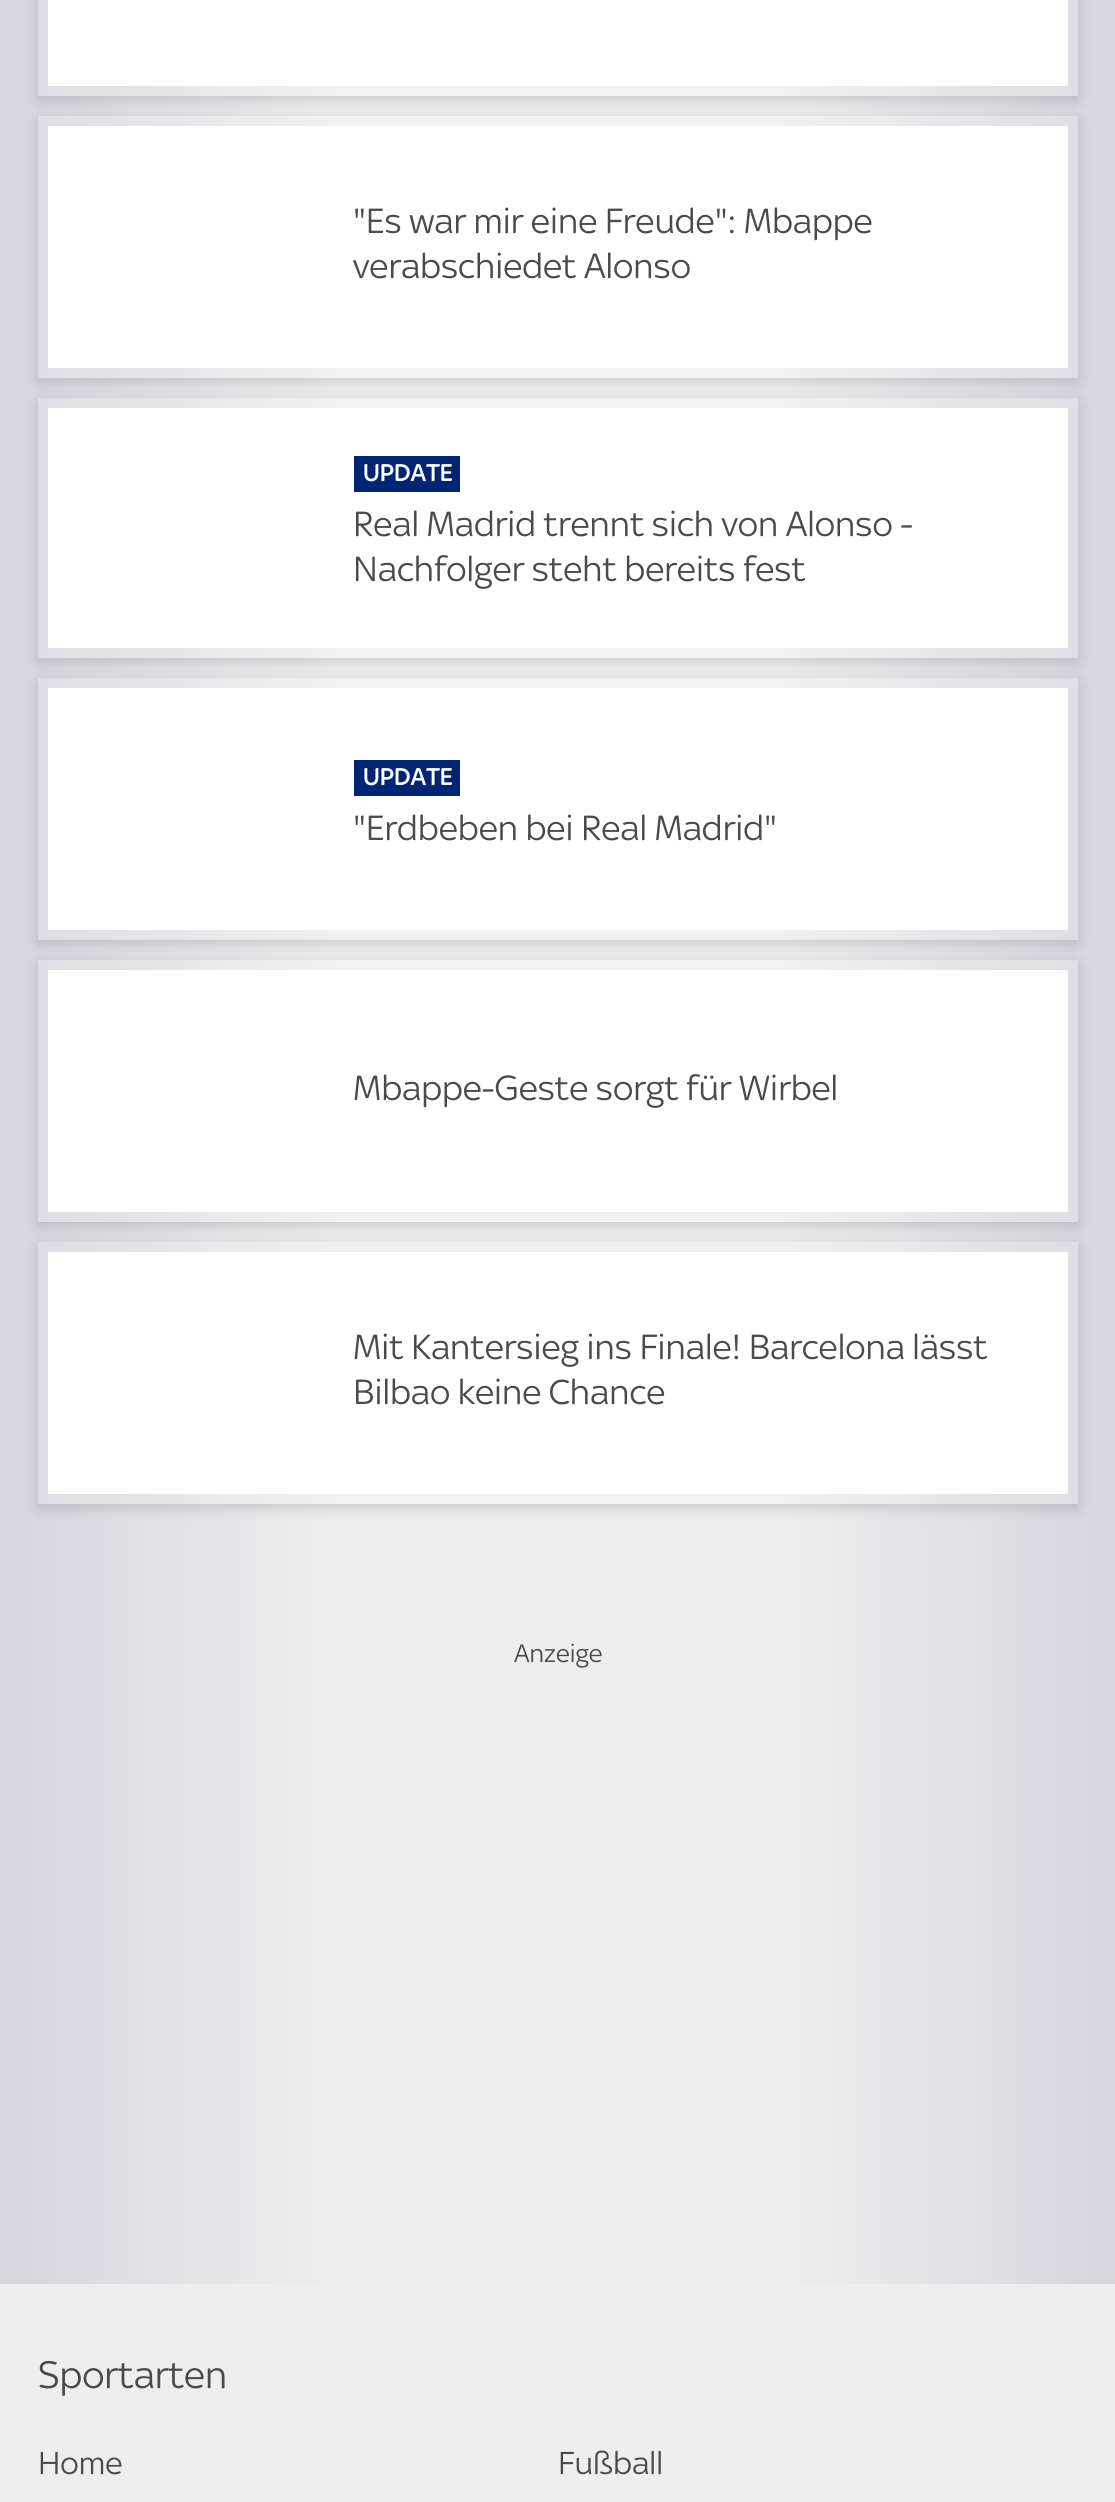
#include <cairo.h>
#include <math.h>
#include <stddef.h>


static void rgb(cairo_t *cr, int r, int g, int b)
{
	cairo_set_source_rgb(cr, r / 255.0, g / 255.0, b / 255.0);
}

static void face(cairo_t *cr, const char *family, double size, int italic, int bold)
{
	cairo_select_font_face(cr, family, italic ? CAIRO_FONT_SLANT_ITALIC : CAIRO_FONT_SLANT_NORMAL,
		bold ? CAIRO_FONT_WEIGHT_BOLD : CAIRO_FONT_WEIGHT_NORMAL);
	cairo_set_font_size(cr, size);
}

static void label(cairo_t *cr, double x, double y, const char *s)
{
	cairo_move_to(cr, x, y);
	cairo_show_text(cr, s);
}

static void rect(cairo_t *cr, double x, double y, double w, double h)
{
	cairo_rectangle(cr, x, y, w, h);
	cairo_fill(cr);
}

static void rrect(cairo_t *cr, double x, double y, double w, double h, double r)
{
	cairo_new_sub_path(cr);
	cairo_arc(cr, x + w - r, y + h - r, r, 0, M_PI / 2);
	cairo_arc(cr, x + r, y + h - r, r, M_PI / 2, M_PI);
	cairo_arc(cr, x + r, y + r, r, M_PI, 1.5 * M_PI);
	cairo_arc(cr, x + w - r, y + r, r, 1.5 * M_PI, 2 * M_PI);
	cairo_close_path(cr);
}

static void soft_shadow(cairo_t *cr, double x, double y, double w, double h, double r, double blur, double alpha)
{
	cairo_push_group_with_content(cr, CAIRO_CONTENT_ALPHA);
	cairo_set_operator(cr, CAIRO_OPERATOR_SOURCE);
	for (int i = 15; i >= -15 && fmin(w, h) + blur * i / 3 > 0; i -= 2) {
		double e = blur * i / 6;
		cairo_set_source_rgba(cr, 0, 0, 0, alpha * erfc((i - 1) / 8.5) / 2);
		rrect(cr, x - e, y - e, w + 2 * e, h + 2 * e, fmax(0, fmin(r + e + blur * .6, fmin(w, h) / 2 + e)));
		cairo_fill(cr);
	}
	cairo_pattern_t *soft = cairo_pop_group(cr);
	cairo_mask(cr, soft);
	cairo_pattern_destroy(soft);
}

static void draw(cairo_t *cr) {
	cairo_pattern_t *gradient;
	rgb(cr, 255, 255, 255);
	cairo_paint(cr);
	gradient = cairo_pattern_create_linear(0, 820, 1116, 820);
	cairo_pattern_add_color_stop_rgba(gradient, 0, 0.843, 0.835, 0.867, 1);
	cairo_pattern_add_color_stop_rgba(gradient, 0.3, 0.933, 0.933, 0.933, 1);
	cairo_pattern_add_color_stop_rgba(gradient, 0.7, 0.933, 0.933, 0.933, 1);
	cairo_pattern_add_color_stop_rgba(gradient, 1, 0.843, 0.835, 0.867, 1);
	cairo_set_source(cr, gradient);
	cairo_pattern_destroy(gradient);
	rect(cr, 0, 0, 1115, 2284);
	rgb(cr, 255, 255, 255);
	rect(cr, 48, 0, 1020, 86);
	cairo_rectangle(cr, 43, -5, 1030, 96);
	cairo_set_source_rgba(cr, 1, 1, 1, 0.15);
	cairo_set_line_width(cr, 10);
	cairo_stroke(cr);
	cairo_save(cr);
	cairo_set_fill_rule(cr, CAIRO_FILL_RULE_EVEN_ODD);
	cairo_new_path(cr);
	cairo_move_to(cr, 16, 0);
	cairo_line_to(cr, 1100, 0);
	cairo_line_to(cr, 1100, 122);
	cairo_line_to(cr, 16, 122);
	cairo_close_path(cr);
	cairo_move_to(cr, 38, -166);
	cairo_line_to(cr, 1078, -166);
	cairo_line_to(cr, 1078, 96);
	cairo_line_to(cr, 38, 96);
	cairo_close_path(cr);
	cairo_clip(cr);
	rgb(cr, 0, 0, 0);
	soft_shadow(cr, 38, -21, 1040, 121, 0, 7, 0.15);
	cairo_restore(cr);
	rgb(cr, 255, 255, 255);
	rect(cr, 48, 126, 1020, 242);
	cairo_rectangle(cr, 43, 121, 1030, 252);
	cairo_set_source_rgba(cr, 1, 1, 1, 0.15);
	cairo_stroke(cr);
	cairo_save(cr);
	cairo_set_fill_rule(cr, CAIRO_FILL_RULE_EVEN_ODD);
	cairo_new_path(cr);
	cairo_move_to(cr, 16, 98);
	cairo_line_to(cr, 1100, 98);
	cairo_line_to(cr, 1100, 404);
	cairo_line_to(cr, 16, 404);
	cairo_close_path(cr);
	cairo_move_to(cr, 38, 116);
	cairo_line_to(cr, 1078, 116);
	cairo_line_to(cr, 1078, 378);
	cairo_line_to(cr, 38, 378);
	cairo_close_path(cr);
	cairo_clip(cr);
	rgb(cr, 0, 0, 0);
	soft_shadow(cr, 38, 120, 1040, 262, 0, 7, 0.15);
	cairo_restore(cr);
	face(cr, "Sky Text", 37.5, 0, 0);
	rgb(cr, 74, 74, 74);
	label(cr, 353, 233, "\"Es war mir eine Freude\": Mbappe");
	label(cr, 353, 278, "verabschiedet Alonso");
	rgb(cr, 255, 255, 255);
	rect(cr, 48, 408, 1020, 240);
	cairo_rectangle(cr, 43, 403, 1030, 250);
	cairo_set_source_rgba(cr, 1, 1, 1, 0.15);
	cairo_stroke(cr);
	cairo_save(cr);
	cairo_set_fill_rule(cr, CAIRO_FILL_RULE_EVEN_ODD);
	cairo_new_path(cr);
	cairo_move_to(cr, 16, 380);
	cairo_line_to(cr, 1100, 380);
	cairo_line_to(cr, 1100, 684);
	cairo_line_to(cr, 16, 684);
	cairo_close_path(cr);
	cairo_move_to(cr, 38, 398);
	cairo_line_to(cr, 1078, 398);
	cairo_line_to(cr, 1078, 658);
	cairo_line_to(cr, 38, 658);
	cairo_close_path(cr);
	cairo_clip(cr);
	rgb(cr, 0, 0, 0);
	soft_shadow(cr, 38, 402, 1040, 260, 0, 7, 0.15);
	cairo_restore(cr);
	rgb(cr, 0, 38, 114);
	rect(cr, 354, 456, 106, 36);
	face(cr, "Sky Text Medium", 26, 0, 0);
	rgb(cr, 255, 255, 255);
	label(cr, 363, 481, "UPDATE");
	face(cr, "Sky Text", 37.5, 0, 0);
	rgb(cr, 74, 74, 74);
	label(cr, 353, 536, "Real Madrid trennt sich von Alonso -");
	label(cr, 353, 581, "Nachfolger steht bereits fest");
	rgb(cr, 255, 255, 255);
	rect(cr, 48, 688, 1020, 242);
	cairo_rectangle(cr, 43, 683, 1030, 252);
	cairo_set_source_rgba(cr, 1, 1, 1, 0.15);
	cairo_stroke(cr);
	cairo_save(cr);
	cairo_set_fill_rule(cr, CAIRO_FILL_RULE_EVEN_ODD);
	cairo_new_path(cr);
	cairo_move_to(cr, 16, 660);
	cairo_line_to(cr, 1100, 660);
	cairo_line_to(cr, 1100, 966);
	cairo_line_to(cr, 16, 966);
	cairo_close_path(cr);
	cairo_move_to(cr, 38, 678);
	cairo_line_to(cr, 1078, 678);
	cairo_line_to(cr, 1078, 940);
	cairo_line_to(cr, 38, 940);
	cairo_close_path(cr);
	cairo_clip(cr);
	rgb(cr, 0, 0, 0);
	soft_shadow(cr, 38, 682, 1040, 262, 0, 7, 0.15);
	cairo_restore(cr);
	rgb(cr, 0, 38, 114);
	rect(cr, 354, 760, 106, 36);
	face(cr, "Sky Text Medium", 26, 0, 0);
	rgb(cr, 255, 255, 255);
	label(cr, 363, 785, "UPDATE");
	face(cr, "Sky Text", 37.5, 0, 0);
	rgb(cr, 74, 74, 74);
	label(cr, 353, 840, "\"Erdbeben bei Real Madrid\"");
	rgb(cr, 255, 255, 255);
	rect(cr, 48, 970, 1020, 242);
	cairo_rectangle(cr, 43, 965, 1030, 252);
	cairo_set_source_rgba(cr, 1, 1, 1, 0.15);
	cairo_stroke(cr);
	cairo_save(cr);
	cairo_set_fill_rule(cr, CAIRO_FILL_RULE_EVEN_ODD);
	cairo_new_path(cr);
	cairo_move_to(cr, 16, 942);
	cairo_line_to(cr, 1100, 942);
	cairo_line_to(cr, 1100, 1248);
	cairo_line_to(cr, 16, 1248);
	cairo_close_path(cr);
	cairo_move_to(cr, 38, 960);
	cairo_line_to(cr, 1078, 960);
	cairo_line_to(cr, 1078, 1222);
	cairo_line_to(cr, 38, 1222);
	cairo_close_path(cr);
	cairo_clip(cr);
	rgb(cr, 0, 0, 0);
	soft_shadow(cr, 38, 964, 1040, 262, 0, 7, 0.15);
	cairo_restore(cr);
	rgb(cr, 74, 74, 74);
	label(cr, 353, 1100, "Mbappe-Geste sorgt für Wirbel");
	rgb(cr, 255, 255, 255);
	rect(cr, 48, 1252, 1020, 242);
	cairo_rectangle(cr, 43, 1247, 1030, 252);
	cairo_set_source_rgba(cr, 1, 1, 1, 0.15);
	cairo_stroke(cr);
	cairo_save(cr);
	cairo_set_fill_rule(cr, CAIRO_FILL_RULE_EVEN_ODD);
	cairo_new_path(cr);
	cairo_move_to(cr, 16, 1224);
	cairo_line_to(cr, 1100, 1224);
	cairo_line_to(cr, 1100, 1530);
	cairo_line_to(cr, 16, 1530);
	cairo_close_path(cr);
	cairo_move_to(cr, 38, 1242);
	cairo_line_to(cr, 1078, 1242);
	cairo_line_to(cr, 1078, 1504);
	cairo_line_to(cr, 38, 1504);
	cairo_close_path(cr);
	cairo_clip(cr);
	rgb(cr, 0, 0, 0);
	soft_shadow(cr, 38, 1246, 1040, 262, 0, 7, 0.15);
	cairo_restore(cr);
	rgb(cr, 74, 74, 74);
	label(cr, 353, 1359, "Mit Kantersieg ins Finale! Barcelona lässt");
	label(cr, 353, 1404, "Bilbao keine Chance");
	face(cr, "Sky Text", 27, 0, 0);
	label(cr, 514, 1662, "Anzeige");
	rgb(cr, 238, 238, 238);
	rect(cr, 0, 2284, 1115, 218);
	face(cr, "Sky Text", 41, 0, 0);
	rgb(cr, 74, 74, 74);
	label(cr, 38, 2388, "Sportarten");
	face(cr, "Sky Text", 34, 0, 0);
	label(cr, 38, 2474, "Home");
	label(cr, 558, 2474, "Fußball");
}

int main(void) {
	cairo_surface_t *surface = cairo_image_surface_create(CAIRO_FORMAT_RGB24, 1115, 2502);
	cairo_t *cr = cairo_create(surface);
	cairo_font_options_t *options = cairo_font_options_create();
	cairo_font_options_set_hint_metrics(options, CAIRO_HINT_METRICS_OFF);
	cairo_font_options_set_hint_style(options, CAIRO_HINT_STYLE_NONE);
	cairo_set_font_options(cr, options);
	cairo_set_miter_limit(cr, 4);
	draw(cr);
	cairo_surface_write_to_png(surface, "render.png");
	cairo_font_options_destroy(options);
	cairo_destroy(cr);
	cairo_surface_destroy(surface);
	return 0;
}
